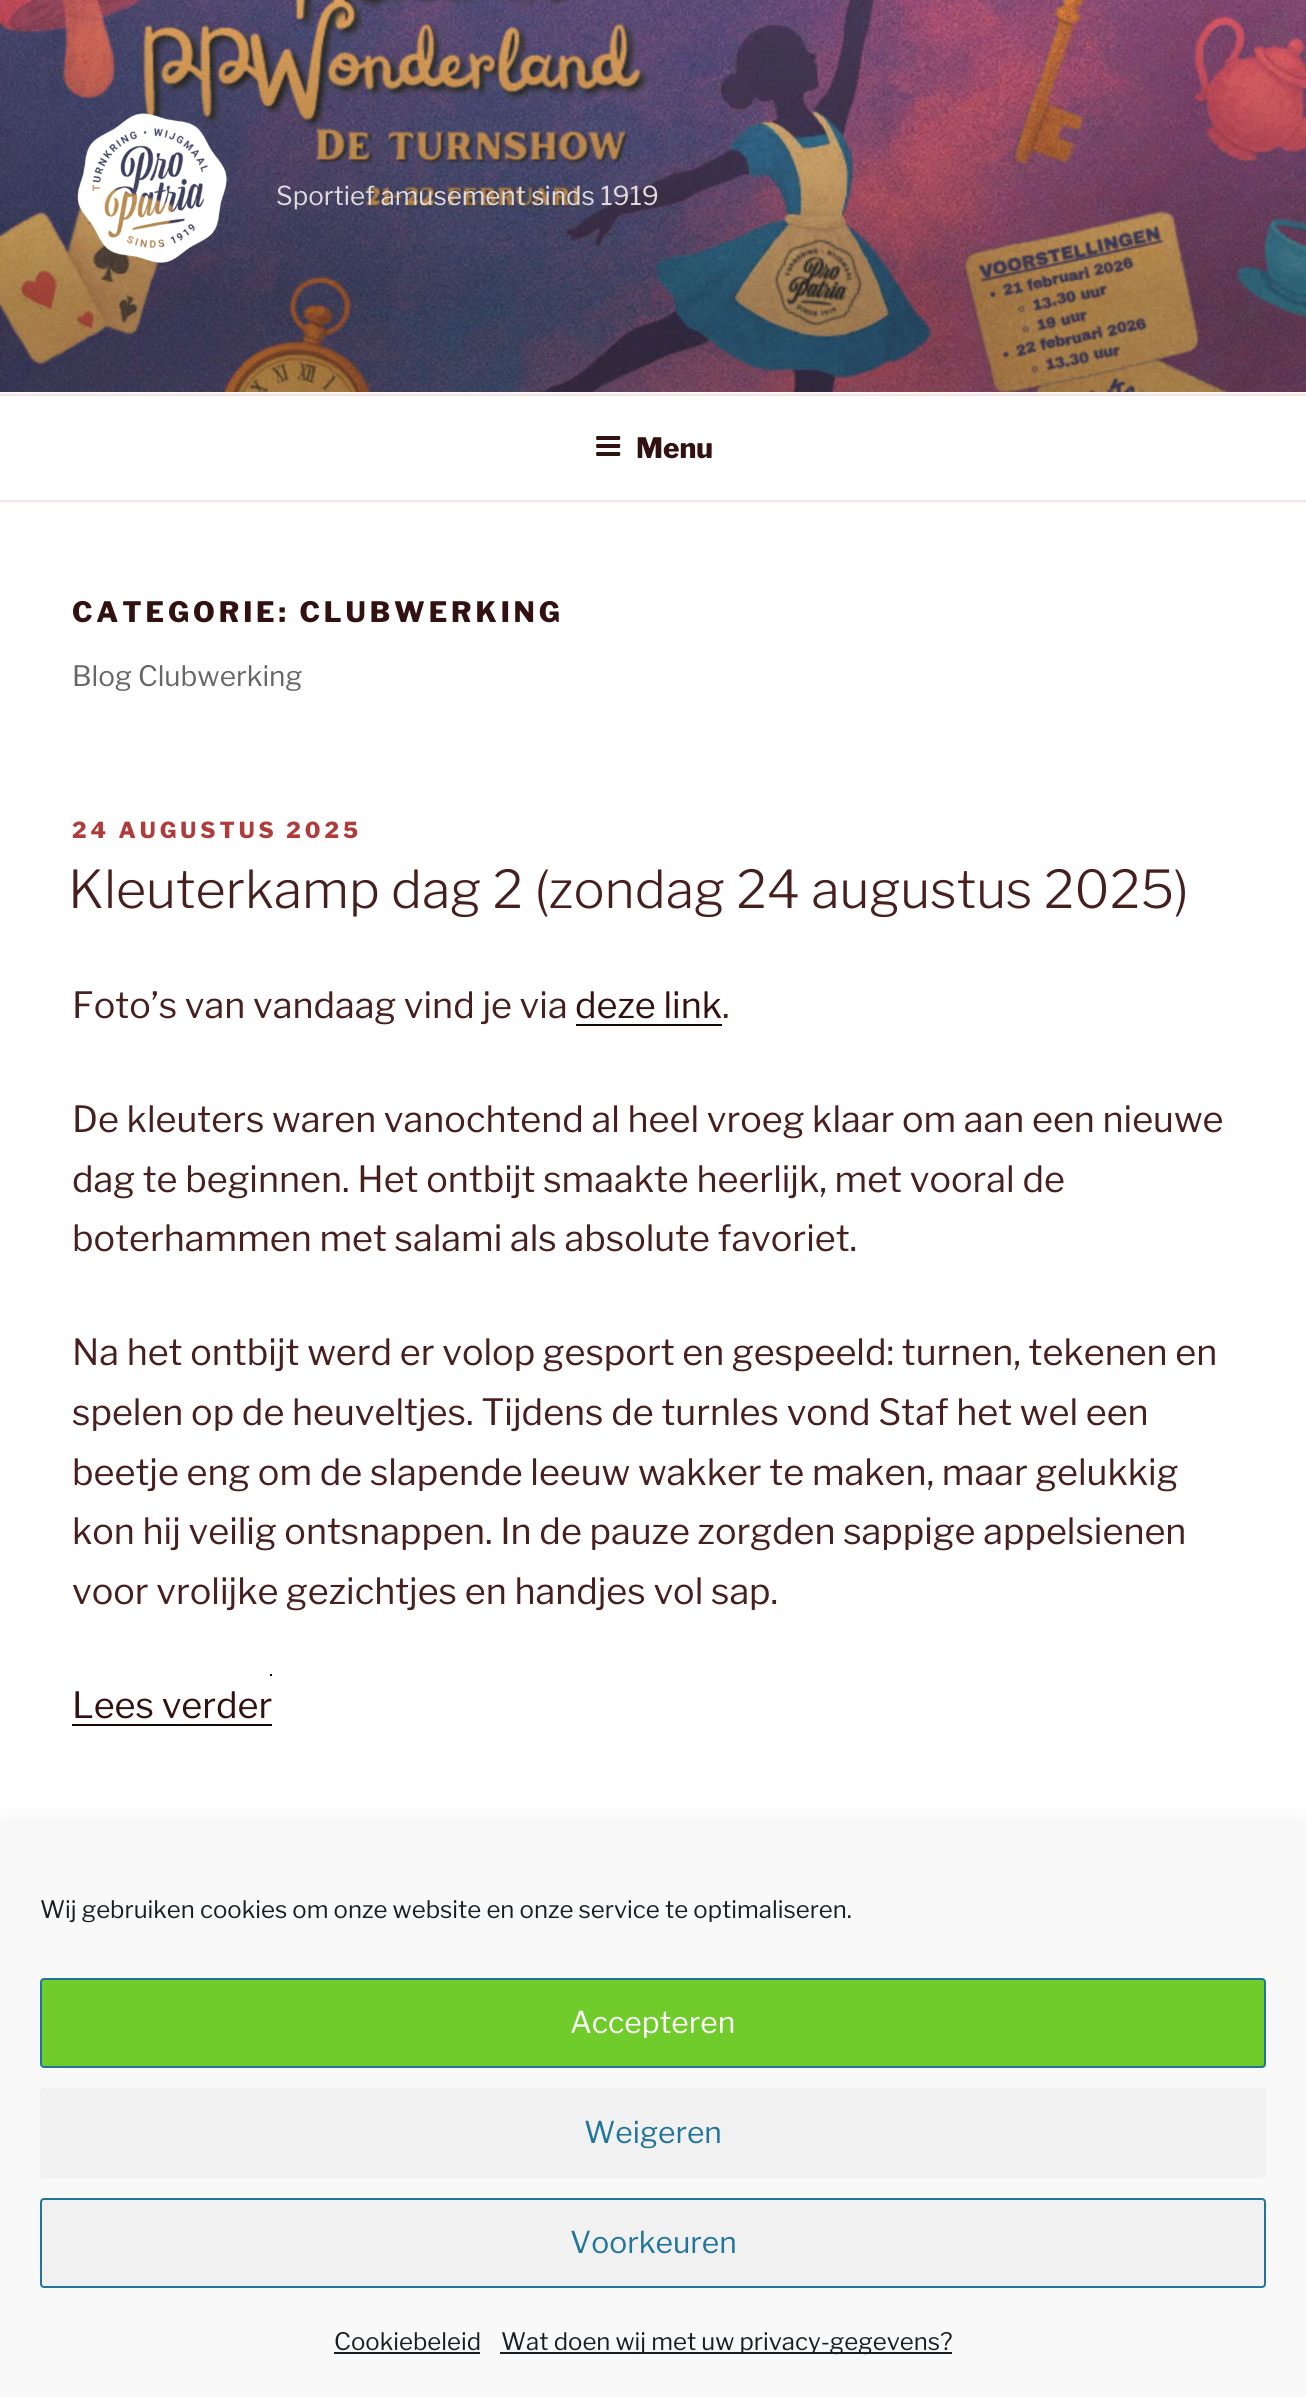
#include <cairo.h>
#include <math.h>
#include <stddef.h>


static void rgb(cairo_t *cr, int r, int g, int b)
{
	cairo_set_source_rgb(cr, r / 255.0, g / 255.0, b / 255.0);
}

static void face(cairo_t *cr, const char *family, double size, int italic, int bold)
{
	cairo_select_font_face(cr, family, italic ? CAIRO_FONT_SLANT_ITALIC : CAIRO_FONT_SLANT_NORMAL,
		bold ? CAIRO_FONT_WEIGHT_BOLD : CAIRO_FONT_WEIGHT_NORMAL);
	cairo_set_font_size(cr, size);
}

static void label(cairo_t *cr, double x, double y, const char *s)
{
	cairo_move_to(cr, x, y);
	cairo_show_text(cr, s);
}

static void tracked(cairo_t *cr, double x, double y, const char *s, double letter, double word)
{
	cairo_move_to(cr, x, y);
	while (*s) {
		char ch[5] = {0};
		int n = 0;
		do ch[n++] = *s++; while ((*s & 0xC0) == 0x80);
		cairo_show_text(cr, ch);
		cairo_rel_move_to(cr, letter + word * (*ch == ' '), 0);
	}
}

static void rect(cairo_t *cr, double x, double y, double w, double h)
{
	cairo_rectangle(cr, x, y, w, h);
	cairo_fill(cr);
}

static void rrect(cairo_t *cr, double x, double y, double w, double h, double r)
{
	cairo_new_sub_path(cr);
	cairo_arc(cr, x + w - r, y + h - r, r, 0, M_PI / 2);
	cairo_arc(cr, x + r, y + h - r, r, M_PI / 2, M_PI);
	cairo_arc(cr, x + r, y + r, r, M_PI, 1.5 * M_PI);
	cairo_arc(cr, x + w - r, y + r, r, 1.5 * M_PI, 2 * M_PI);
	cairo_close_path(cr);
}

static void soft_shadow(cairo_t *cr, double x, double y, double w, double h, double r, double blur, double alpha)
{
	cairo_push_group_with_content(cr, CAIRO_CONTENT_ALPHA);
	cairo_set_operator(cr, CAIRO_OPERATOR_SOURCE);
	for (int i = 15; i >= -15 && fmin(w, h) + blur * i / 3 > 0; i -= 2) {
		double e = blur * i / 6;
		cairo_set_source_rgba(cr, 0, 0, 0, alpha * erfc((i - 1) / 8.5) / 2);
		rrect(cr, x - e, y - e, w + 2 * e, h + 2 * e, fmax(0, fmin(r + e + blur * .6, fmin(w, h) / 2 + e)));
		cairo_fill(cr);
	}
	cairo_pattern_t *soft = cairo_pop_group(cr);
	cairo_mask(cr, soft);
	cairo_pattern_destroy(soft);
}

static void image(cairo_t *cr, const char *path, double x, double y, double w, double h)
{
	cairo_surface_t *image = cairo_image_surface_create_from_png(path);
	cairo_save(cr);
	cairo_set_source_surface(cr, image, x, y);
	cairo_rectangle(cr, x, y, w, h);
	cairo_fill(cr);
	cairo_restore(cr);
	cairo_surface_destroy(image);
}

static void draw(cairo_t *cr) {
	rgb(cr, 255, 255, 255);
	cairo_paint(cr);
	rgb(cr, 252, 247, 247);
	rect(cr, 0, 392, 1306, 2);
	image(cr, "image0.png", 0, 0, 1306, 392);
	image(cr, "image1.png", 77, 113, 150, 150);
	face(cr, "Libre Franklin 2 Thin", 26, 0, 0);
	rgb(cr, 222, 219, 221);
	label(cr, 276, 205, "Sportief amusement sinds 1919");
	rgb(cr, 246, 228, 228);
	rect(cr, 0, 394, 1306, 2);
	rect(cr, 0, 500, 1306, 2);
	image(cr, "image2.png", 596, 436, 25, 20);
	face(cr, "Libre Franklin Thin", 28, 0, 0);
	rgb(cr, 50, 17, 17);
	label(cr, 636, 458, "Menu");
	tracked(cr, 72, 622, "CATEGORIE: CLUBWERKING", 3.9, 0);
	face(cr, "Libre Franklin 2 Thin", 28, 0, 0);
	rgb(cr, 102, 102, 102);
	label(cr, 72, 686, "Blog Clubwerking");
	face(cr, "Libre Franklin Thin", 22, 0, 0);
	rgb(cr, 176, 59, 59);
	tracked(cr, 72, 838, "24 AUGUSTUS 2025", 4, 0);
	face(cr, "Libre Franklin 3 Thin", 52, 0, 0);
	rgb(cr, 71, 31, 31);
	label(cr, 68, 908, "Kleuterkamp dag 2 (zondag 24 augustus 2025)");
	face(cr, "Libre Franklin 2 Thin", 36, 0, 0);
	label(cr, 72, 1018, "Foto’s van vandaag vind je via");
	rgb(cr, 50, 17, 17);
	label(cr, 575, 1018, "deze link");
	rgb(cr, 23, 8, 8);
	rect(cr, 576, 1024, 146, 2);
	rgb(cr, 71, 31, 31);
	label(cr, 722, 1018, ".");
	label(cr, 72, 1132, "De kleuters waren vanochtend al heel vroeg klaar om aan een nieuwe");
	label(cr, 72, 1192, "dag te beginnen. Het ontbijt smaakte heerlijk, met vooral de");
	label(cr, 72, 1251, "boterhammen met salami als absolute favoriet.");
	label(cr, 72, 1365, "Na het ontbijt werd er volop gesport en gespeeld: turnen, tekenen en");
	label(cr, 72, 1425, "spelen op de heuveltjes. Tijdens de turnles vond Staf het wel een");
	label(cr, 72, 1485, "beetje eng om de slapende leeuw wakker te maken, maar gelukkig");
	label(cr, 72, 1544, "kon hij veilig ontsnappen. In de pauze zorgden sappige appelsienen");
	label(cr, 72, 1604, "voor vrolijke gezichtjes en handjes vol sap.");
	rgb(cr, 50, 17, 17);
	label(cr, 72, 1718, "Lees verder");
	rgb(cr, 23, 8, 8);
	rect(cr, 72, 1724, 200, 2);
	rect(cr, 270, 1674, 2, 2);
	rgb(cr, 0, 0, 0);
	soft_shadow(cr, 0, 1842, 1306, 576, 0, 20, 0.19);
	rgb(cr, 249, 249, 249);
	rect(cr, 0, 1824, 1306, 573);
	face(cr, "Libre Franklin 2 Thin", 24, 0, 0);
	rgb(cr, 25, 30, 35);
	label(cr, 40, 1918, "Wij gebruiken cookies om onze website en onze service te optimaliseren.");
	rgb(cr, 112, 204, 42);
	rrect(cr, 41, 1979, 1224, 88, 3);
	cairo_fill_preserve(cr);
	rgb(cr, 33, 117, 155);
	cairo_stroke(cr);
	face(cr, "Libre Franklin 2 Thin", 30, 0, 0);
	rgb(cr, 255, 255, 255);
	label(cr, 570, 2033, "Accepteren");
	rgb(cr, 241, 241, 241);
	rrect(cr, 40, 2088, 1226, 90, 4);
	cairo_fill(cr);
	rgb(cr, 33, 117, 155);
	label(cr, 584, 2143, "Weigeren");
	rgb(cr, 241, 241, 241);
	rrect(cr, 41, 2199, 1224, 88, 3);
	cairo_fill_preserve(cr);
	rgb(cr, 33, 117, 155);
	cairo_stroke(cr);
	label(cr, 570, 2253, "Voorkeuren");
	face(cr, "Libre Franklin 2 Thin", 24, 0, 0);
	rgb(cr, 25, 30, 35);
	label(cr, 334, 2350, "Cookiebeleid");
	rect(cr, 334, 2352, 146, 2);
	rect(cr, 500, 2352, 452, 2);
	label(cr, 501, 2350, "Wat doen wij met uw privacy-gegevens?");
}

int main(void) {
	cairo_surface_t *surface = cairo_image_surface_create(CAIRO_FORMAT_RGB24, 1306, 2397);
	cairo_t *cr = cairo_create(surface);
	cairo_font_options_t *options = cairo_font_options_create();
	cairo_font_options_set_hint_metrics(options, CAIRO_HINT_METRICS_OFF);
	cairo_font_options_set_hint_style(options, CAIRO_HINT_STYLE_NONE);
	cairo_set_font_options(cr, options);
	cairo_set_miter_limit(cr, 4);
	draw(cr);
	cairo_surface_write_to_png(surface, "render.png");
	cairo_font_options_destroy(options);
	cairo_destroy(cr);
	cairo_surface_destroy(surface);
	return 0;
}
